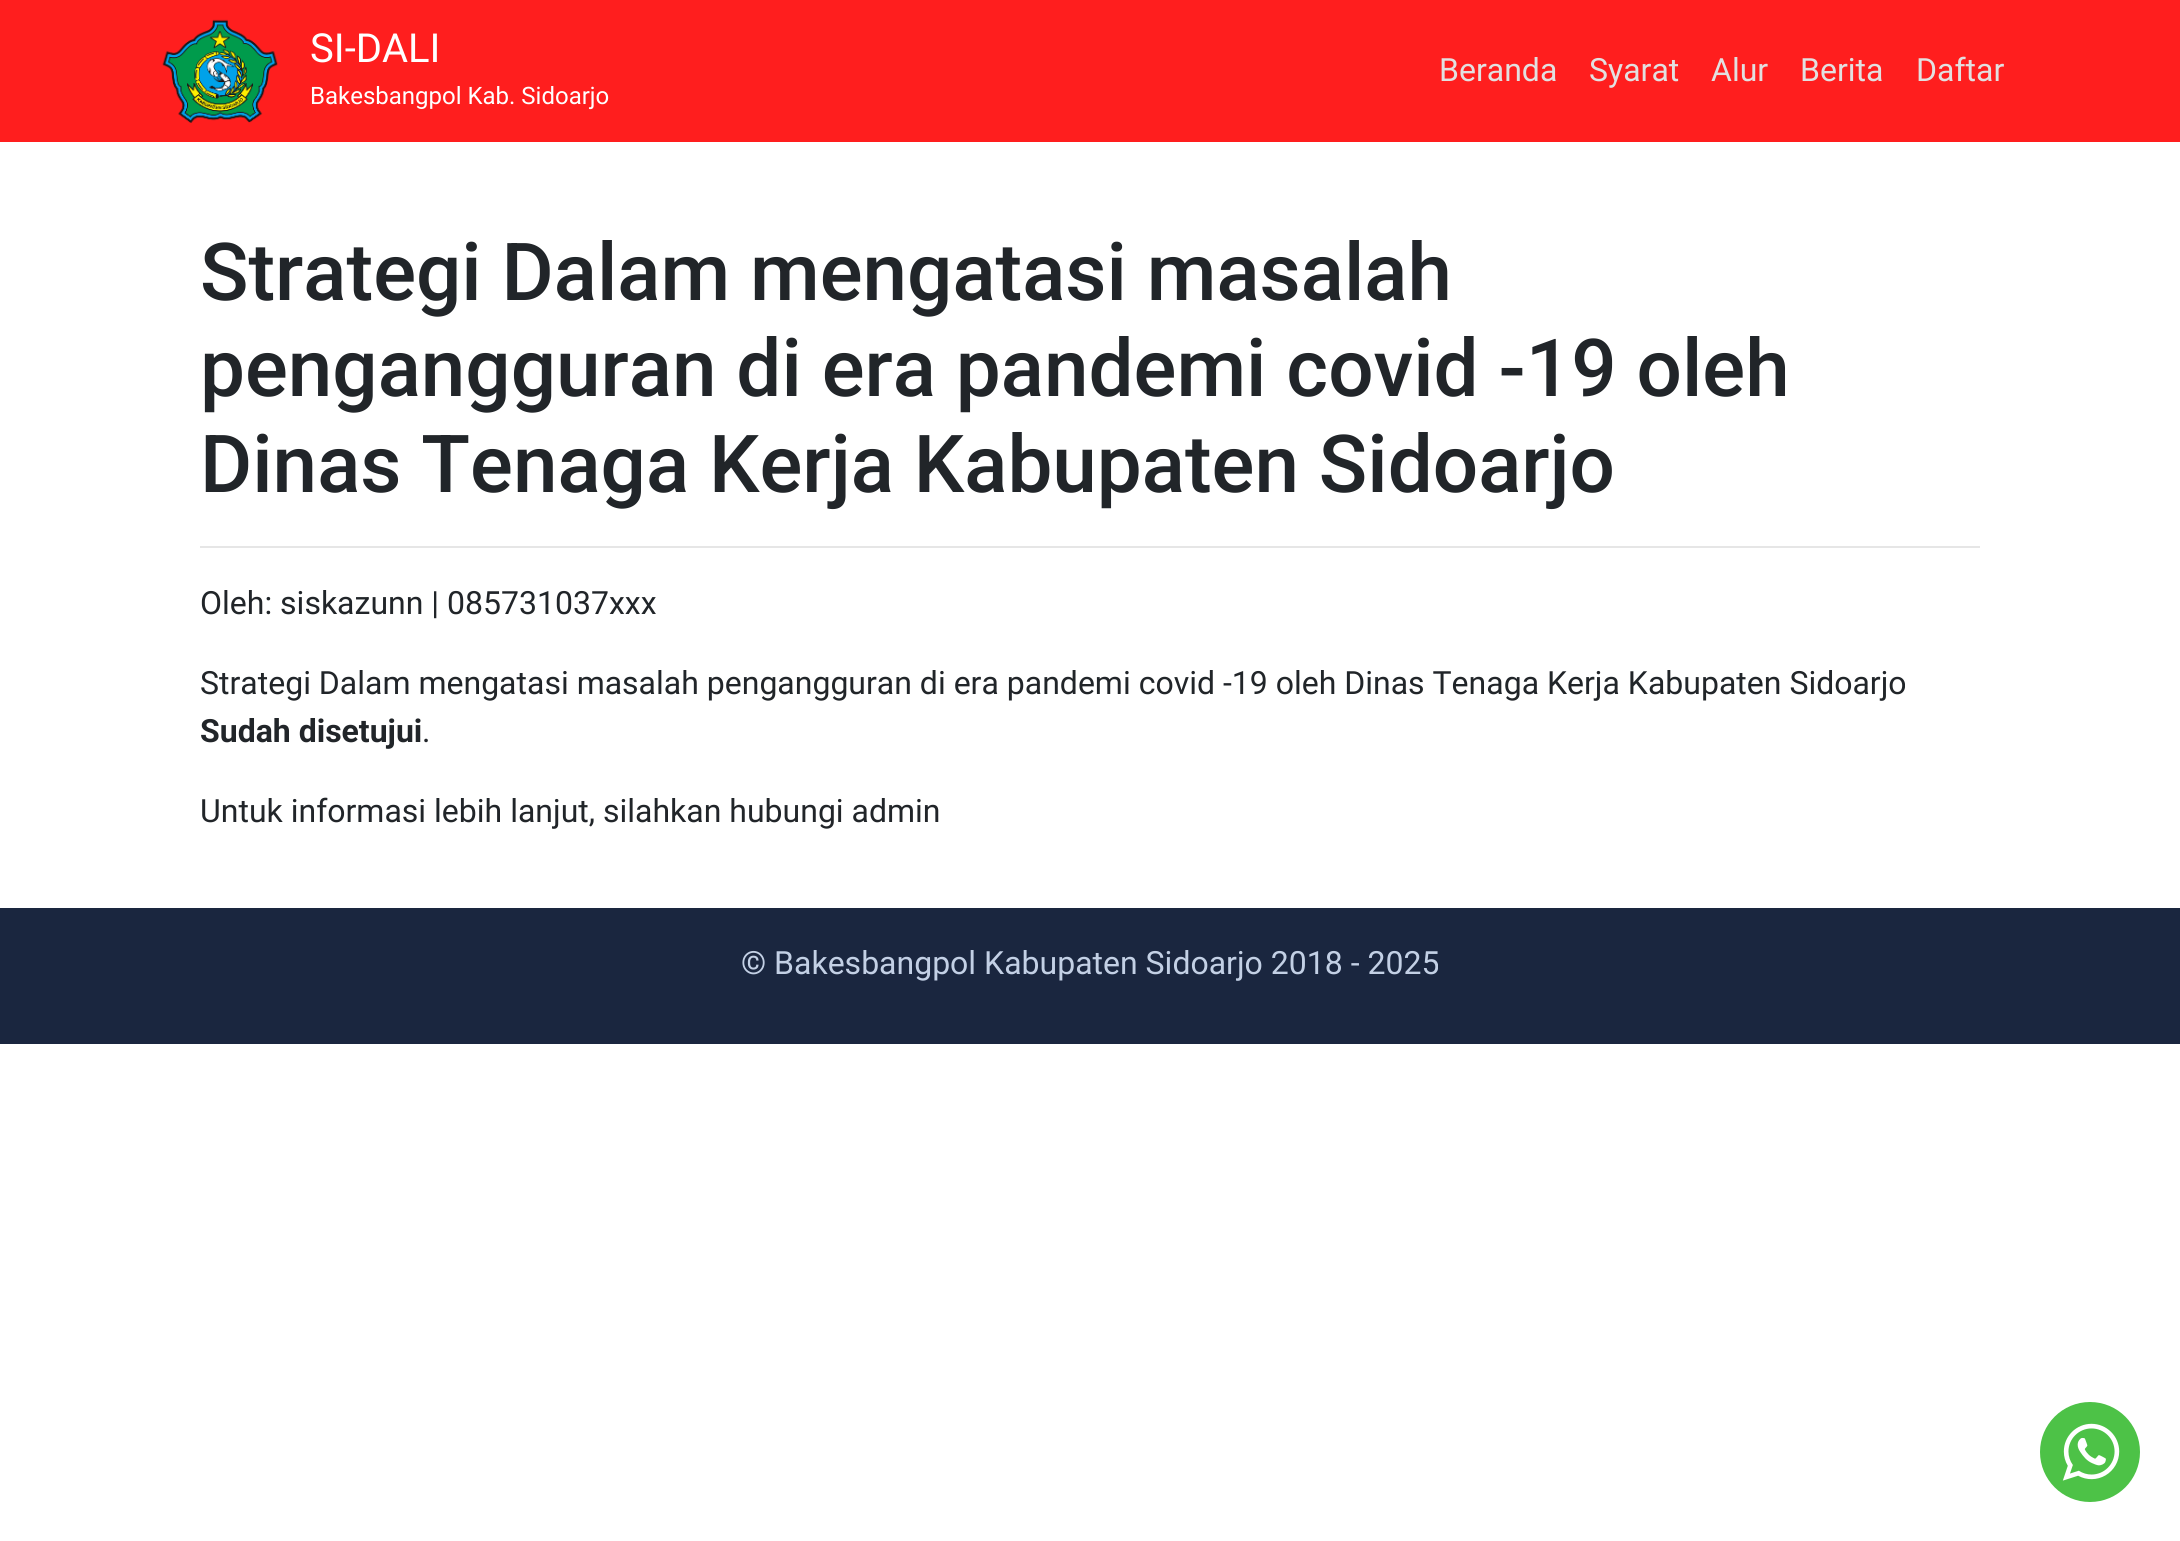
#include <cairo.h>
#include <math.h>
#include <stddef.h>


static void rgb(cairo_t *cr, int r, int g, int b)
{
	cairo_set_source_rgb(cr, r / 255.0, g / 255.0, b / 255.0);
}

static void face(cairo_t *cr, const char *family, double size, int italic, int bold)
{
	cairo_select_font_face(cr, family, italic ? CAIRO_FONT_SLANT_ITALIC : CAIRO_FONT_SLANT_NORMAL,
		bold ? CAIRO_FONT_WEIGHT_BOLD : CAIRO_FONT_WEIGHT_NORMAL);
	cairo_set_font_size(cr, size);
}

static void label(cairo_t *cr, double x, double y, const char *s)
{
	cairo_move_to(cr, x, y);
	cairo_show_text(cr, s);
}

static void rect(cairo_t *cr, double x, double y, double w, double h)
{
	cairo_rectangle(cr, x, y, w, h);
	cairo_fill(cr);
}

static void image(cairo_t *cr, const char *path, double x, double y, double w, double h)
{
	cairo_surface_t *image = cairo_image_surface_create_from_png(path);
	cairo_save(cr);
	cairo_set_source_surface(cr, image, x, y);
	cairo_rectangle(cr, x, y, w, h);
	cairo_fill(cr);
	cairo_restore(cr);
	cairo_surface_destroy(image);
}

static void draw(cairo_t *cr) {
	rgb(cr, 255, 255, 255);
	cairo_paint(cr);
	rgb(cr, 255, 30, 30);
	rect(cr, 0, 0, 2180, 142);
	image(cr, "image0.png", 162, 19, 116, 104);
	face(cr, "Roboto", 40, 0, 0);
	rgb(cr, 255, 255, 255);
	label(cr, 310, 62, "SI-DALI");
	face(cr, "Roboto", 24, 0, 0);
	label(cr, 310, 104, "Bakesbangpol Kab. Sidoarjo");
	face(cr, "Roboto", 32, 0, 0);
	rgb(cr, 226, 224, 224);
	label(cr, 1439, 81, "Beranda");
	label(cr, 1589, 81, "Syarat");
	label(cr, 1711, 81, "Alur");
	label(cr, 1800, 81, "Berita");
	label(cr, 1916, 81, "Daftar");
	face(cr, "Roboto Medium", 80, 0, 0);
	rgb(cr, 33, 37, 41);
	label(cr, 200, 300, "Strategi Dalam mengatasi masalah");
	label(cr, 200, 396, "pengangguran di era pandemi covid -19 oleh");
	label(cr, 200, 492, "Dinas Tenaga Kerja Kabupaten Sidoarjo");
	rgb(cr, 230, 230, 230);
	rect(cr, 200, 546, 1780, 2);
	face(cr, "Roboto", 32, 0, 0);
	rgb(cr, 33, 37, 41);
	label(cr, 200, 614, "Oleh: siskazunn | 085731037xxx");
	label(cr, 200, 694, "Strategi Dalam mengatasi masalah pengangguran di era pandemi covid -19 oleh Dinas Tenaga Kerja Kabupaten Sidoarjo");
	face(cr, "Roboto", 32, 0, 1);
	label(cr, 200, 742, "Sudah disetujui");
	face(cr, "Roboto", 32, 0, 0);
	label(cr, 422, 742, ".");
	label(cr, 200, 822, "Untuk informasi lebih lanjut, silahkan hubungi admin");
	rgb(cr, 26, 38, 63);
	rect(cr, 0, 908, 2180, 136);
	rgb(cr, 195, 208, 229);
	label(cr, 741, 974, "© Bakesbangpol Kabupaten Sidoarjo 2018 - 2025");
	rgb(cr, 77, 194, 71);
	cairo_new_path(cr);
	cairo_arc(cr, 2090, 1452, 50, 0, 2 * M_PI);
	cairo_fill(cr);
	image(cr, "image1.png", 2062, 1423, 58, 58);
}

int main(void) {
	cairo_surface_t *surface = cairo_image_surface_create(CAIRO_FORMAT_RGB24, 2180, 1541);
	cairo_t *cr = cairo_create(surface);
	cairo_font_options_t *options = cairo_font_options_create();
	cairo_font_options_set_hint_metrics(options, CAIRO_HINT_METRICS_OFF);
	cairo_font_options_set_hint_style(options, CAIRO_HINT_STYLE_NONE);
	cairo_set_font_options(cr, options);
	cairo_set_miter_limit(cr, 4);
	draw(cr);
	cairo_surface_write_to_png(surface, "render.png");
	cairo_font_options_destroy(options);
	cairo_destroy(cr);
	cairo_surface_destroy(surface);
	return 0;
}
